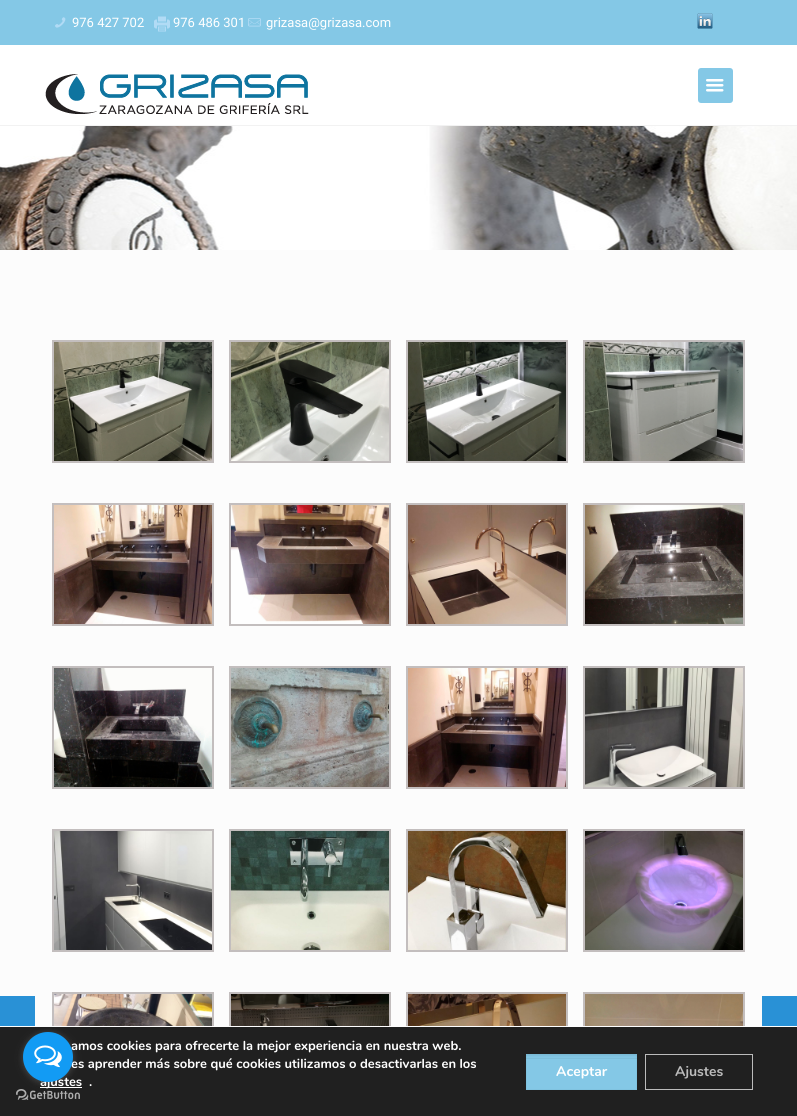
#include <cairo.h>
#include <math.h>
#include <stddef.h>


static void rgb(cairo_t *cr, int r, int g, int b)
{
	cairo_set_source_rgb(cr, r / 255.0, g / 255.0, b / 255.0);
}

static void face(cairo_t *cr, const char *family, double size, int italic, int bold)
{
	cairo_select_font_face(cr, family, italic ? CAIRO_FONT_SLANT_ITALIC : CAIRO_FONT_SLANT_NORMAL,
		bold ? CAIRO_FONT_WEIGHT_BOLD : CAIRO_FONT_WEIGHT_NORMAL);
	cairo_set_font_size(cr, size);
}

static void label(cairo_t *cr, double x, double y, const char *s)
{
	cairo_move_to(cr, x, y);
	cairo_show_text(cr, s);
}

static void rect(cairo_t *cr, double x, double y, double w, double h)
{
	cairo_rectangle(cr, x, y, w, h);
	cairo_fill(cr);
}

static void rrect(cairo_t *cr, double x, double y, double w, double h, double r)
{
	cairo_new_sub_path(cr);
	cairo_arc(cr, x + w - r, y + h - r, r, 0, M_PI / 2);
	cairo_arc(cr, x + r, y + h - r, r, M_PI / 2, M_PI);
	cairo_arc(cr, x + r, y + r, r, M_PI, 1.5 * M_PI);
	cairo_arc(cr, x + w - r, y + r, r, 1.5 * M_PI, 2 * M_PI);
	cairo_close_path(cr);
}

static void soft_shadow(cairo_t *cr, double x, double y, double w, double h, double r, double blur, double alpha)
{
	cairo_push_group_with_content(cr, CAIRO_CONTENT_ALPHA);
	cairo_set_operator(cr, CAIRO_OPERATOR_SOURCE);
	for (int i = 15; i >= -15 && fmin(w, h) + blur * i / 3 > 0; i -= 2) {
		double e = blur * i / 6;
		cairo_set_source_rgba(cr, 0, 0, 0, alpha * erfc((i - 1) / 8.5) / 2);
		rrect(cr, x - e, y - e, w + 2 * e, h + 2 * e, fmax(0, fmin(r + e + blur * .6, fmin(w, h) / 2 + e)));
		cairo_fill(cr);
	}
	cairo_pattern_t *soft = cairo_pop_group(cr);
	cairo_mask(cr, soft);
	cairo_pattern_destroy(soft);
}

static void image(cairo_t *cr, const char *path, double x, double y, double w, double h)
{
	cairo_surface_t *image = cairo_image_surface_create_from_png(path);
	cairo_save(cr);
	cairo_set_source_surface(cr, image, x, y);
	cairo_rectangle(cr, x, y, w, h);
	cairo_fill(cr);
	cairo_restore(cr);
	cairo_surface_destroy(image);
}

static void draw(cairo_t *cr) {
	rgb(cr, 252, 252, 252);
	cairo_paint(cr);
	image(cr, "image0.png", 0, 126, 797, 124);
	rgb(cr, 132, 200, 230);
	rect(cr, 0, 0, 797, 45);
	image(cr, "image1.png", 55, 17, 11, 11);
	face(cr, "Roboto", 13, 0, 0);
	rgb(cr, 255, 255, 255);
	label(cr, 72, 27, "976 427 702");
	image(cr, "image2.png", 154, 16, 16, 16);
	label(cr, 173, 27, "976 486 301");
	image(cr, "image3.png", 248, 18, 13, 9);
	label(cr, 266, 27, "grizasa@grizasa.com");
	image(cr, "image4.png", 697, 13, 16, 16);
	rect(cr, 0, 45, 797, 80);
	rgb(cr, 242, 242, 242);
	rect(cr, 0, 125, 797, 1);
	image(cr, "image5.png", 45, 74, 264, 40);
	rgb(cr, 132, 200, 230);
	rrect(cr, 698, 68, 35, 35, 3);
	cairo_fill(cr);
	image(cr, "image6.png", 706, 79, 18, 13);
	cairo_rectangle(cr, 53, 341, 160, 121);
	rgb(cr, 195, 190, 190);
	cairo_stroke(cr);
	image(cr, "image7.png", 54, 342, 158, 119);
	cairo_rectangle(cr, 230, 341, 160, 121);
	cairo_stroke(cr);
	image(cr, "image8.png", 231, 342, 158, 119);
	cairo_rectangle(cr, 407, 341, 160, 121);
	cairo_stroke(cr);
	image(cr, "image9.png", 408, 342, 158, 119);
	cairo_rectangle(cr, 584, 341, 160, 121);
	cairo_stroke(cr);
	image(cr, "image10.png", 585, 342, 158, 119);
	cairo_rectangle(cr, 53, 504, 160, 121);
	cairo_stroke(cr);
	image(cr, "image11.png", 54, 505, 158, 119);
	cairo_rectangle(cr, 230, 504, 160, 121);
	cairo_stroke(cr);
	image(cr, "image12.png", 231, 505, 158, 119);
	cairo_rectangle(cr, 407, 504, 160, 121);
	cairo_stroke(cr);
	image(cr, "image13.png", 408, 505, 158, 119);
	cairo_rectangle(cr, 584, 504, 160, 121);
	cairo_stroke(cr);
	image(cr, "image14.png", 585, 505, 158, 119);
	cairo_rectangle(cr, 53, 667, 160, 121);
	cairo_stroke(cr);
	image(cr, "image15.png", 54, 668, 158, 119);
	cairo_rectangle(cr, 230, 667, 160, 121);
	cairo_stroke(cr);
	image(cr, "image16.png", 231, 668, 158, 119);
	cairo_rectangle(cr, 407, 667, 160, 121);
	cairo_stroke(cr);
	image(cr, "image17.png", 408, 668, 158, 119);
	cairo_rectangle(cr, 584, 667, 160, 121);
	cairo_stroke(cr);
	image(cr, "image18.png", 585, 668, 158, 119);
	cairo_rectangle(cr, 53, 830, 160, 121);
	cairo_stroke(cr);
	image(cr, "image19.png", 54, 831, 158, 119);
	cairo_rectangle(cr, 230, 830, 160, 121);
	cairo_stroke(cr);
	image(cr, "image20.png", 231, 831, 158, 119);
	cairo_rectangle(cr, 407, 830, 160, 121);
	cairo_stroke(cr);
	image(cr, "image21.png", 408, 831, 158, 119);
	cairo_rectangle(cr, 584, 830, 160, 121);
	cairo_stroke(cr);
	image(cr, "image22.png", 585, 831, 158, 119);
	cairo_rectangle(cr, 53, 993, 160, 122);
	cairo_stroke(cr);
	image(cr, "image23.png", 54, 994, 158, 32);
	cairo_rectangle(cr, 230, 993, 160, 122);
	cairo_stroke(cr);
	image(cr, "image24.png", 231, 994, 158, 32);
	cairo_rectangle(cr, 407, 993, 160, 122);
	cairo_stroke(cr);
	image(cr, "image25.png", 408, 994, 158, 32);
	cairo_rectangle(cr, 584, 993, 160, 122);
	cairo_stroke(cr);
	image(cr, "image26.png", 585, 994, 158, 32);
	rgb(cr, 41, 145, 214);
	rect(cr, 0, 996, 35, 30);
	rect(cr, 762, 996, 35, 30);
	rgb(cr, 32, 32, 32);
	rect(cr, 0, 1027, 797, 89);
	image(cr, "image28.png", 16, 1089, 64, 11);
	rgb(cr, 255, 255, 255);
	rect(cr, 0, 1026, 797, 1);
	rect(cr, 40, 1087, 42, 1);
	rgb(cr, 136, 136, 136);
	soft_shadow(cr, 23, 1033, 50, 50, 25, 3.5, 0.4);
	face(cr, "Nunito", 13, 0, 1);
	rgb(cr, 255, 255, 255);
	label(cr, 71, 1050, "amos cookies para ofrecerte la mejor experiencia en nuestra web.");
	label(cr, 71, 1068, "es aprender más sobre qué cookies utilizamos o desactivarlas en los");
	label(cr, 40, 1086, "ajustes");
	rgb(cr, 18, 155, 244);
	cairo_new_path(cr);
	cairo_arc(cr, 48, 1057, 25, 0, 2 * M_PI);
	cairo_fill(cr);
	image(cr, "image27.png", 34, 1045, 28, 23);
	rgb(cr, 255, 255, 255);
	label(cr, 89, 1086, ".");
	rgb(cr, 132, 200, 230);
	rect(cr, 526, 1054, 111, 36);
	image(cr, "image29.png", 526, 1054, 111, 5);
	cairo_rectangle(cr, 526.5, 1054.5, 110, 35);
	cairo_set_source_rgba(cr, 0, 0, 0, 0.03);
	cairo_set_line_width(cr, 1);
	cairo_stroke(cr);
	face(cr, "Nunito", 14, 0, 1);
	rgb(cr, 255, 255, 255);
	label(cr, 556, 1076, "Aceptar");
	cairo_rectangle(cr, 645.5, 1054.5, 107, 35);
	rgb(cr, 188, 188, 188);
	cairo_stroke(cr);
	label(cr, 675, 1076, "Ajustes");
}

int main(void) {
	cairo_surface_t *surface = cairo_image_surface_create(CAIRO_FORMAT_RGB24, 797, 1116);
	cairo_t *cr = cairo_create(surface);
	cairo_font_options_t *options = cairo_font_options_create();
	cairo_font_options_set_hint_metrics(options, CAIRO_HINT_METRICS_OFF);
	cairo_font_options_set_hint_style(options, CAIRO_HINT_STYLE_NONE);
	cairo_set_font_options(cr, options);
	cairo_set_miter_limit(cr, 4);
	draw(cr);
	cairo_surface_write_to_png(surface, "render.png");
	cairo_font_options_destroy(options);
	cairo_destroy(cr);
	cairo_surface_destroy(surface);
	return 0;
}
